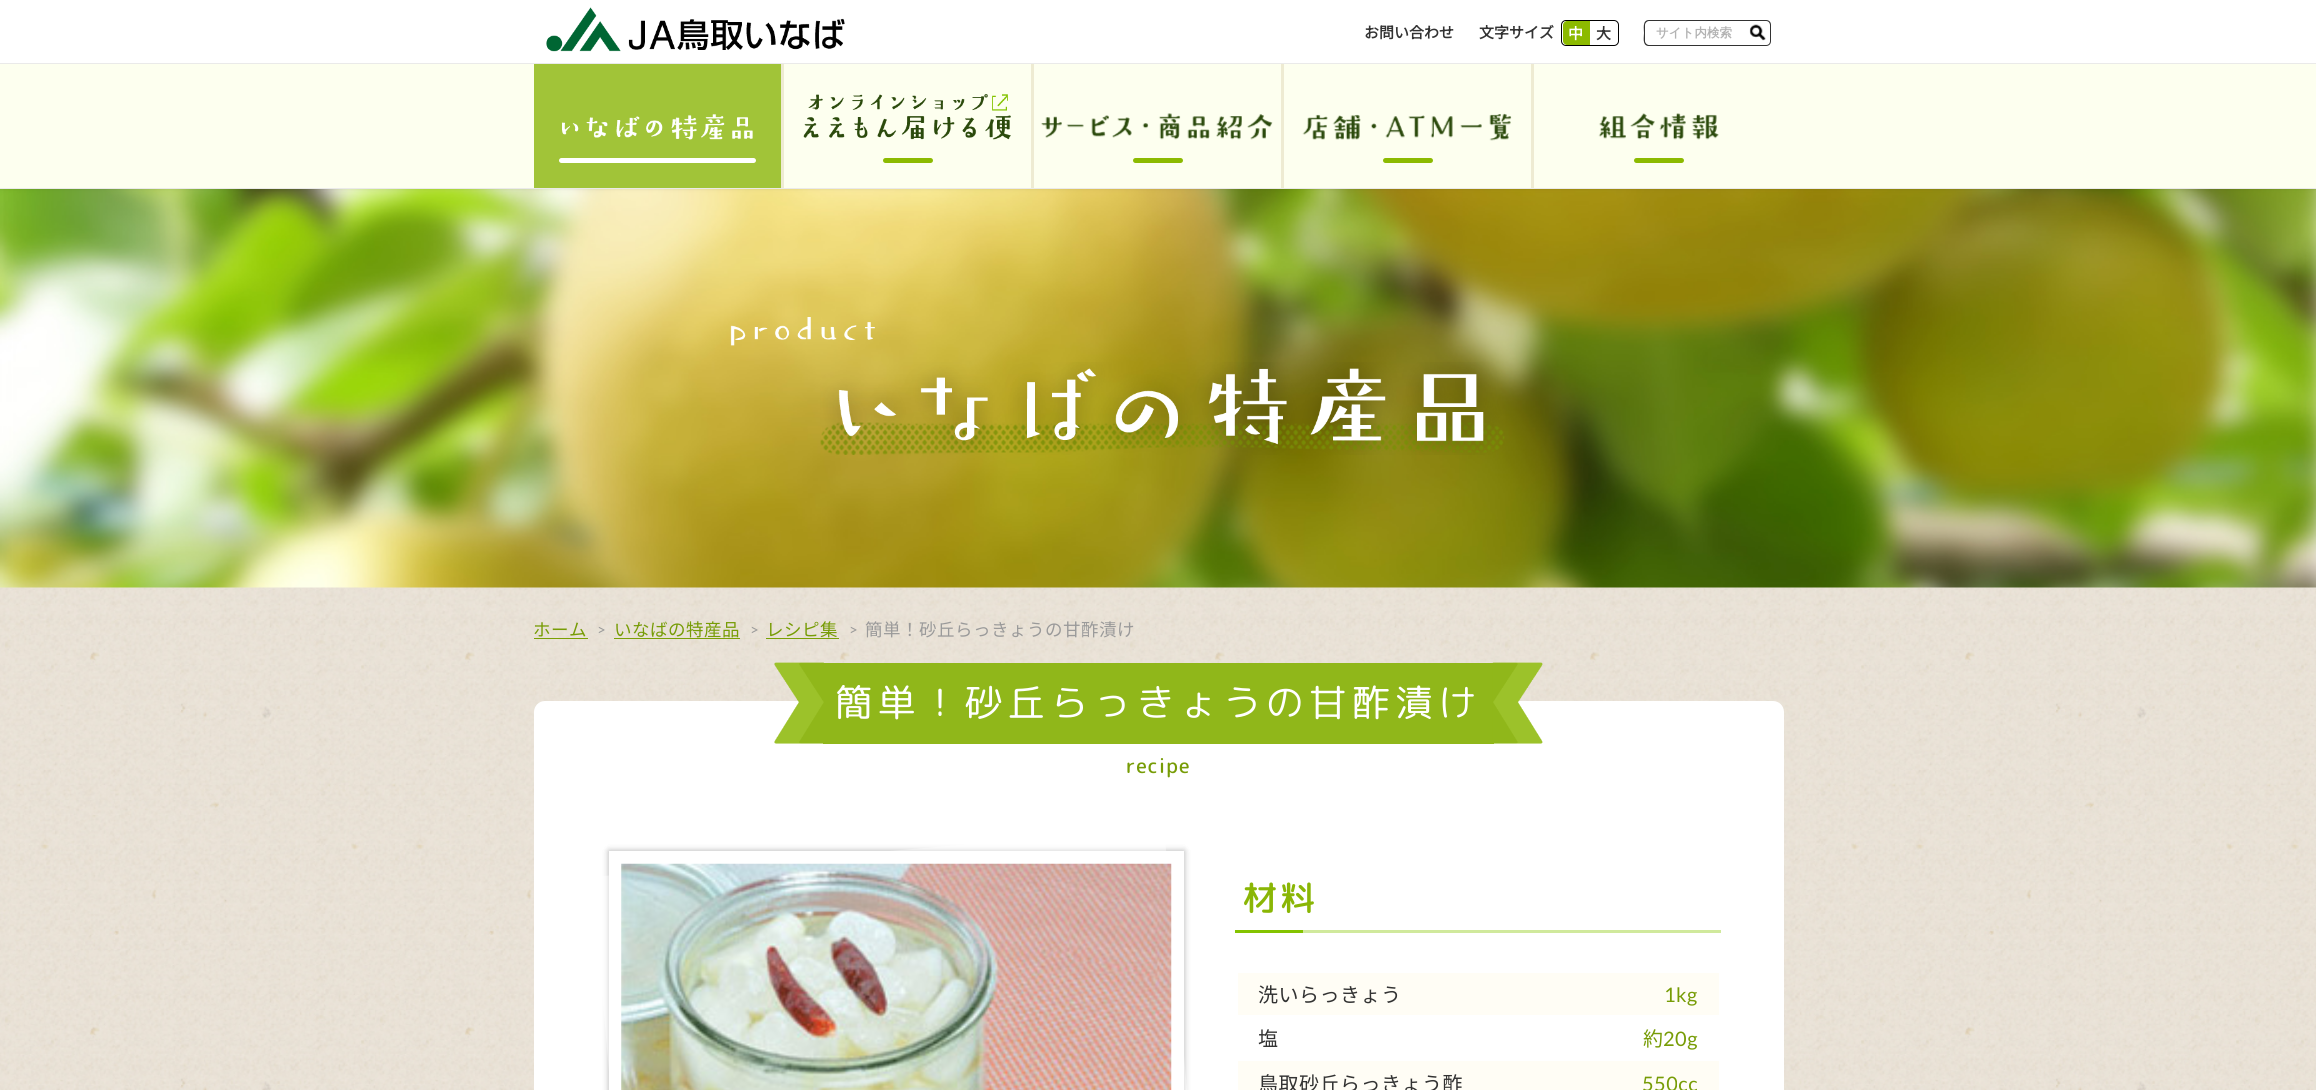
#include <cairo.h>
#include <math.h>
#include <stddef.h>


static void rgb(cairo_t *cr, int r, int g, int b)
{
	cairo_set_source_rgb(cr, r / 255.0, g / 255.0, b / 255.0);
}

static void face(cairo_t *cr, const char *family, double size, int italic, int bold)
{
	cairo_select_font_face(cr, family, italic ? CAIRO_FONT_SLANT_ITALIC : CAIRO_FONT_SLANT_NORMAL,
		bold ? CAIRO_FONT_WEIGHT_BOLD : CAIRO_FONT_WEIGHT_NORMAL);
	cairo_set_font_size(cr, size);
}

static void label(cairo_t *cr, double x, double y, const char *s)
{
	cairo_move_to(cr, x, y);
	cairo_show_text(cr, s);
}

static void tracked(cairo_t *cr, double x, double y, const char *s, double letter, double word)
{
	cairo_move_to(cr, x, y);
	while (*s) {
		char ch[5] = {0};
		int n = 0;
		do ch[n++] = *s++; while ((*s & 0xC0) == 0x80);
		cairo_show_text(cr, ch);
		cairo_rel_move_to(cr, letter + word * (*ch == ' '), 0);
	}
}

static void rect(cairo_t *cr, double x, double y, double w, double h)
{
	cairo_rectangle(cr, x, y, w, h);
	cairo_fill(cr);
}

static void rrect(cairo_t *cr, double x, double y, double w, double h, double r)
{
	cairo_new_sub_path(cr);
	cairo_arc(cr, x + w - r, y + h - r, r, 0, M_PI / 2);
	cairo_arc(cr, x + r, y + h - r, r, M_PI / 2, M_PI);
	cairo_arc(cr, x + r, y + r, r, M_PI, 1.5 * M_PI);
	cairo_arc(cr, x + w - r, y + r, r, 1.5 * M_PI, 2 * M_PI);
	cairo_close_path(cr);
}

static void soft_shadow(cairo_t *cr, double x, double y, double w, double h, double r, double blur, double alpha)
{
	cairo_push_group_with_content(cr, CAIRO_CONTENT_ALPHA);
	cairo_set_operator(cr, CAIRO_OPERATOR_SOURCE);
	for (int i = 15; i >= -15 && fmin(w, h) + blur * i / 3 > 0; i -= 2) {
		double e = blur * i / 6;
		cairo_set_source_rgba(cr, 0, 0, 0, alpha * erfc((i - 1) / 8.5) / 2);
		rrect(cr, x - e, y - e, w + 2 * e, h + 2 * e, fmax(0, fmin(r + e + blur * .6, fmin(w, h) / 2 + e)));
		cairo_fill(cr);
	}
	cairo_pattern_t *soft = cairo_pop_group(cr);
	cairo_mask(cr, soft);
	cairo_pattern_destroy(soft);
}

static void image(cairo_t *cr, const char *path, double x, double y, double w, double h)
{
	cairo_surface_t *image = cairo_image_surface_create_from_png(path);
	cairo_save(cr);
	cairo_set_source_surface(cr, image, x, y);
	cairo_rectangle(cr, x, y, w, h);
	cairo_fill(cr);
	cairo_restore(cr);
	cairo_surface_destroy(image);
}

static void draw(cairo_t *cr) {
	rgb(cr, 255, 255, 255);
	cairo_paint(cr);
	image(cr, "image7.png", 0, 587, 2316, 503);
	image(cr, "image8.png", 0, 189, 2316, 399);
	rgb(cr, 0, 0, 0);
	soft_shadow(cr, 0, 1, 2316, 188, 0, 2, 0.1);
	rgb(cr, 255, 255, 255);
	rect(cr, 0, 0, 2316, 63);
	image(cr, "image0.png", 546, 7, 299, 45);
	face(cr, "Noto Sans JP", 15, 0, 1);
	rgb(cr, 51, 51, 51);
	label(cr, 1364, 38, "お問い合わせ");
	label(cr, 1479, 38, "文字サイズ");
	rrect(cr, 1561.5, 20.5, 57, 25, 4.5);
	rgb(cr, 0, 0, 0);
	cairo_set_line_width(cr, 1);
	cairo_stroke(cr);
	rgb(cr, 140, 186, 0);
	cairo_new_path(cr);
	cairo_move_to(cr, 1567, 21);
	cairo_line_to(cr, 1590, 21);
	cairo_line_to(cr, 1590, 45);
	cairo_line_to(cr, 1567, 45);
	cairo_curve_to(cr, 1565, 45, 1563, 43, 1563, 41);
	cairo_line_to(cr, 1563, 25);
	cairo_curve_to(cr, 1563, 23, 1565, 21, 1567, 21);
	cairo_close_path(cr);
	cairo_fill(cr);
	rgb(cr, 255, 255, 255);
	label(cr, 1568, 39, "中");
	rgb(cr, 51, 51, 51);
	label(cr, 1596, 39, "大");
	cairo_set_fill_rule(cr, CAIRO_FILL_RULE_EVEN_ODD);
	cairo_new_path(cr);
	cairo_move_to(cr, 1649, 20);
	cairo_line_to(cr, 1748, 20);
	cairo_line_to(cr, 1748, 46);
	cairo_line_to(cr, 1648, 46);
	cairo_curve_to(cr, 1642, 45, 1644, 37, 1644, 33);
	cairo_curve_to(cr, 1644, 29, 1642, 20, 1649, 20);
	cairo_close_path(cr);
	cairo_move_to(cr, 1649, 21);
	cairo_line_to(cr, 1748, 21);
	cairo_line_to(cr, 1748, 45);
	cairo_line_to(cr, 1649, 45);
	cairo_curve_to(cr, 1647, 45, 1645, 43, 1645, 41);
	cairo_line_to(cr, 1645, 25);
	cairo_curve_to(cr, 1645, 23, 1647, 21, 1649, 21);
	cairo_close_path(cr);
	cairo_fill(cr);
	face(cr, "WenQuanYi Zen Hei", 12.5, 0, 1);
	rgb(cr, 179, 179, 179);
	label(cr, 1656, 37, "サイト内検索");
	image(cr, "image1.png", 1749, 24, 17, 17);
	rgb(cr, 51, 51, 51);
	cairo_new_path(cr);
	cairo_move_to(cr, 1747.5, 20);
	cairo_line_to(cr, 1766, 20);
	cairo_curve_to(cr, 1769, 20, 1771, 22, 1771, 25);
	cairo_line_to(cr, 1771, 41);
	cairo_curve_to(cr, 1771, 44, 1769, 46, 1766, 46);
	cairo_line_to(cr, 1747.5, 46);
	cairo_close_path(cr);
	cairo_move_to(cr, 1747.5, 21);
	cairo_line_to(cr, 1766, 21);
	cairo_curve_to(cr, 1768.5, 21, 1770, 23, 1770, 25);
	cairo_line_to(cr, 1770, 41);
	cairo_curve_to(cr, 1770, 43.5, 1768.5, 45, 1766, 45);
	cairo_line_to(cr, 1747.5, 45);
	cairo_close_path(cr);
	cairo_fill(cr);
	rgb(cr, 253, 255, 239);
	rect(cr, 0, 64, 2316, 124);
	rgb(cr, 234, 234, 233);
	rect(cr, 0, 63, 2316, 1);
	rect(cr, 0, 188, 2316, 1);
	rgb(cr, 238, 235, 210);
	rect(cr, 781, 64, 3, 124);
	rgb(cr, 161, 196, 56);
	rect(cr, 534, 64, 247, 124);
	image(cr, "image2.png", 562, 114, 191, 26);
	rgb(cr, 255, 255, 255);
	rrect(cr, 559, 158, 197, 5, 2.5);
	cairo_fill(cr);
	rgb(cr, 238, 235, 210);
	rect(cr, 1031, 64, 3, 124);
	image(cr, "image3.png", 803, 94, 208, 46);
	rgb(cr, 140, 186, 0);
	rrect(cr, 883, 158, 50, 5, 2.5);
	cairo_fill(cr);
	rgb(cr, 238, 235, 210);
	rect(cr, 1281, 64, 3, 124);
	image(cr, "image4.png", 1041, 113, 232, 27);
	rgb(cr, 140, 186, 0);
	rrect(cr, 1133, 158, 50, 5, 2.5);
	cairo_fill(cr);
	rgb(cr, 238, 235, 210);
	rect(cr, 1531, 64, 3, 124);
	image(cr, "image5.png", 1302, 113, 210, 28);
	rgb(cr, 140, 186, 0);
	rrect(cr, 1383, 158, 50, 5, 2.5);
	cairo_fill(cr);
	image(cr, "image6.png", 1598, 113, 121, 27);
	rrect(cr, 1634, 158, 50, 5, 2.5);
	cairo_fill(cr);
	image(cr, "image9.png", 730, 317, 145, 29);
	image(cr, "image10.png", 820, 362, 685, 93);
	face(cr, "Noto Sans JP Thin", 17.5, 0, 0);
	rgb(cr, 119, 156, 6);
	tracked(cr, 533, 636, "ホーム", 0.5, 0);
	rgb(cr, 123, 160, 3);
	rect(cr, 534, 638, 54, 1);
	face(cr, "Lato", 15, 0, 0);
	rgb(cr, 154, 154, 154);
	label(cr, 597, 635, ">");
	face(cr, "Noto Sans JP Thin", 17.5, 0, 0);
	rgb(cr, 119, 156, 6);
	tracked(cr, 614, 636, "いなばの特産品", 0.5, 0);
	rgb(cr, 123, 160, 3);
	rect(cr, 614, 638, 126, 1);
	face(cr, "Lato", 15, 0, 0);
	rgb(cr, 154, 154, 154);
	label(cr, 750, 635, ">");
	face(cr, "Noto Sans JP Thin", 17.5, 0, 0);
	rgb(cr, 119, 156, 6);
	tracked(cr, 766, 636, "レシピ集", 0.5, 0);
	rgb(cr, 123, 160, 3);
	rect(cr, 766, 638, 73, 1);
	face(cr, "Lato", 15, 0, 0);
	rgb(cr, 154, 154, 154);
	label(cr, 849, 635, ">");
	face(cr, "Noto Sans JP Thin", 17.5, 0, 0);
	tracked(cr, 865, 636, "簡単！砂丘らっきょうの甘酢漬け", 0.5, 0);
	rgb(cr, 255, 255, 255);
	rrect(cr, 534, 701, 1250, 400, 11);
	cairo_fill(cr);
	rgb(cr, 144, 183, 26);
	rect(cr, 823, 663, 671, 81);
	image(cr, "image11.png", 774, 662, 50, 82);
	face(cr, "Rounded Mplus 1c", 37.5, 0, 0);
	rgb(cr, 255, 255, 255);
	tracked(cr, 835, 716, "簡単！砂丘らっきょうの甘酢漬け", 5.6, 0);
	image(cr, "image12.png", 1492, 662, 51, 82);
	face(cr, "Rounded Mplus 1c Medium", 20, 0, 0);
	rgb(cr, 119, 156, 6);
	tracked(cr, 1126, 773, "recipe", 1, 0);
	rgb(cr, 204, 204, 204);
	soft_shadow(cr, 609, 851, 575, 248, 0, 3, 1);
	rgb(cr, 255, 255, 255);
	cairo_set_fill_rule(cr, CAIRO_FILL_RULE_WINDING);
	cairo_new_path(cr);
	cairo_move_to(cr, 592, 877);
	cairo_line_to(cr, 1164, 827);
	cairo_line_to(cr, 1201, 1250);
	cairo_line_to(cr, 629, 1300);
	cairo_close_path(cr);
	cairo_fill(cr);
	rgb(cr, 204, 204, 204);
	soft_shadow(cr, 609, 851, 575, 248, 0, 3, 1);
	rgb(cr, 255, 255, 255);
	rect(cr, 609, 851, 575, 239);
	image(cr, "image13.png", 621, 863, 551, 227);
	rgb(cr, 208, 233, 156);
	rect(cr, 1303, 930, 418, 3);
	face(cr, "Rounded Mplus 1c Medium", 34, 0, 0);
	rgb(cr, 138, 182, 5);
	tracked(cr, 1243, 910, "材料", 3, 0);
	rgb(cr, 132, 195, 0);
	rect(cr, 1235, 930, 68, 3);
	rgb(cr, 255, 253, 245);
	rect(cr, 1238, 973, 481, 42);
	face(cr, "Noto Sans JP Thin", 20, 0, 0);
	rgb(cr, 51, 51, 51);
	tracked(cr, 1258, 1002, "洗いらっきょう", 0.5, 0);
	face(cr, "Lato", 20, 0, 0);
	rgb(cr, 119, 156, 6);
	tracked(cr, 1664, 1002, "1kg", 0.5, 0);
	face(cr, "Noto Sans JP Thin", 20, 0, 0);
	rgb(cr, 51, 51, 51);
	tracked(cr, 1258, 1046, "塩", 0.5, 0);
	rgb(cr, 119, 156, 6);
	tracked(cr, 1643, 1046, "約", 0.5, 0);
	face(cr, "Lato", 20, 0, 0);
	tracked(cr, 1663, 1046, "20g", 0.5, 0);
	rgb(cr, 255, 253, 245);
	rect(cr, 1238, 1061, 481, 29);
	face(cr, "Noto Sans JP Thin", 20, 0, 0);
	rgb(cr, 51, 51, 51);
	tracked(cr, 1258, 1091, "鳥取砂丘らっきょう酢", 0.5, 0);
	face(cr, "Lato", 20, 0, 0);
	rgb(cr, 119, 156, 6);
	tracked(cr, 1642, 1091, "550cc", 0.5, 0);
}

int main(void) {
	cairo_surface_t *surface = cairo_image_surface_create(CAIRO_FORMAT_RGB24, 2316, 1090);
	cairo_t *cr = cairo_create(surface);
	cairo_font_options_t *options = cairo_font_options_create();
	cairo_font_options_set_hint_metrics(options, CAIRO_HINT_METRICS_OFF);
	cairo_font_options_set_hint_style(options, CAIRO_HINT_STYLE_NONE);
	cairo_set_font_options(cr, options);
	cairo_set_miter_limit(cr, 4);
	draw(cr);
	cairo_surface_write_to_png(surface, "render.png");
	cairo_font_options_destroy(options);
	cairo_destroy(cr);
	cairo_surface_destroy(surface);
	return 0;
}
